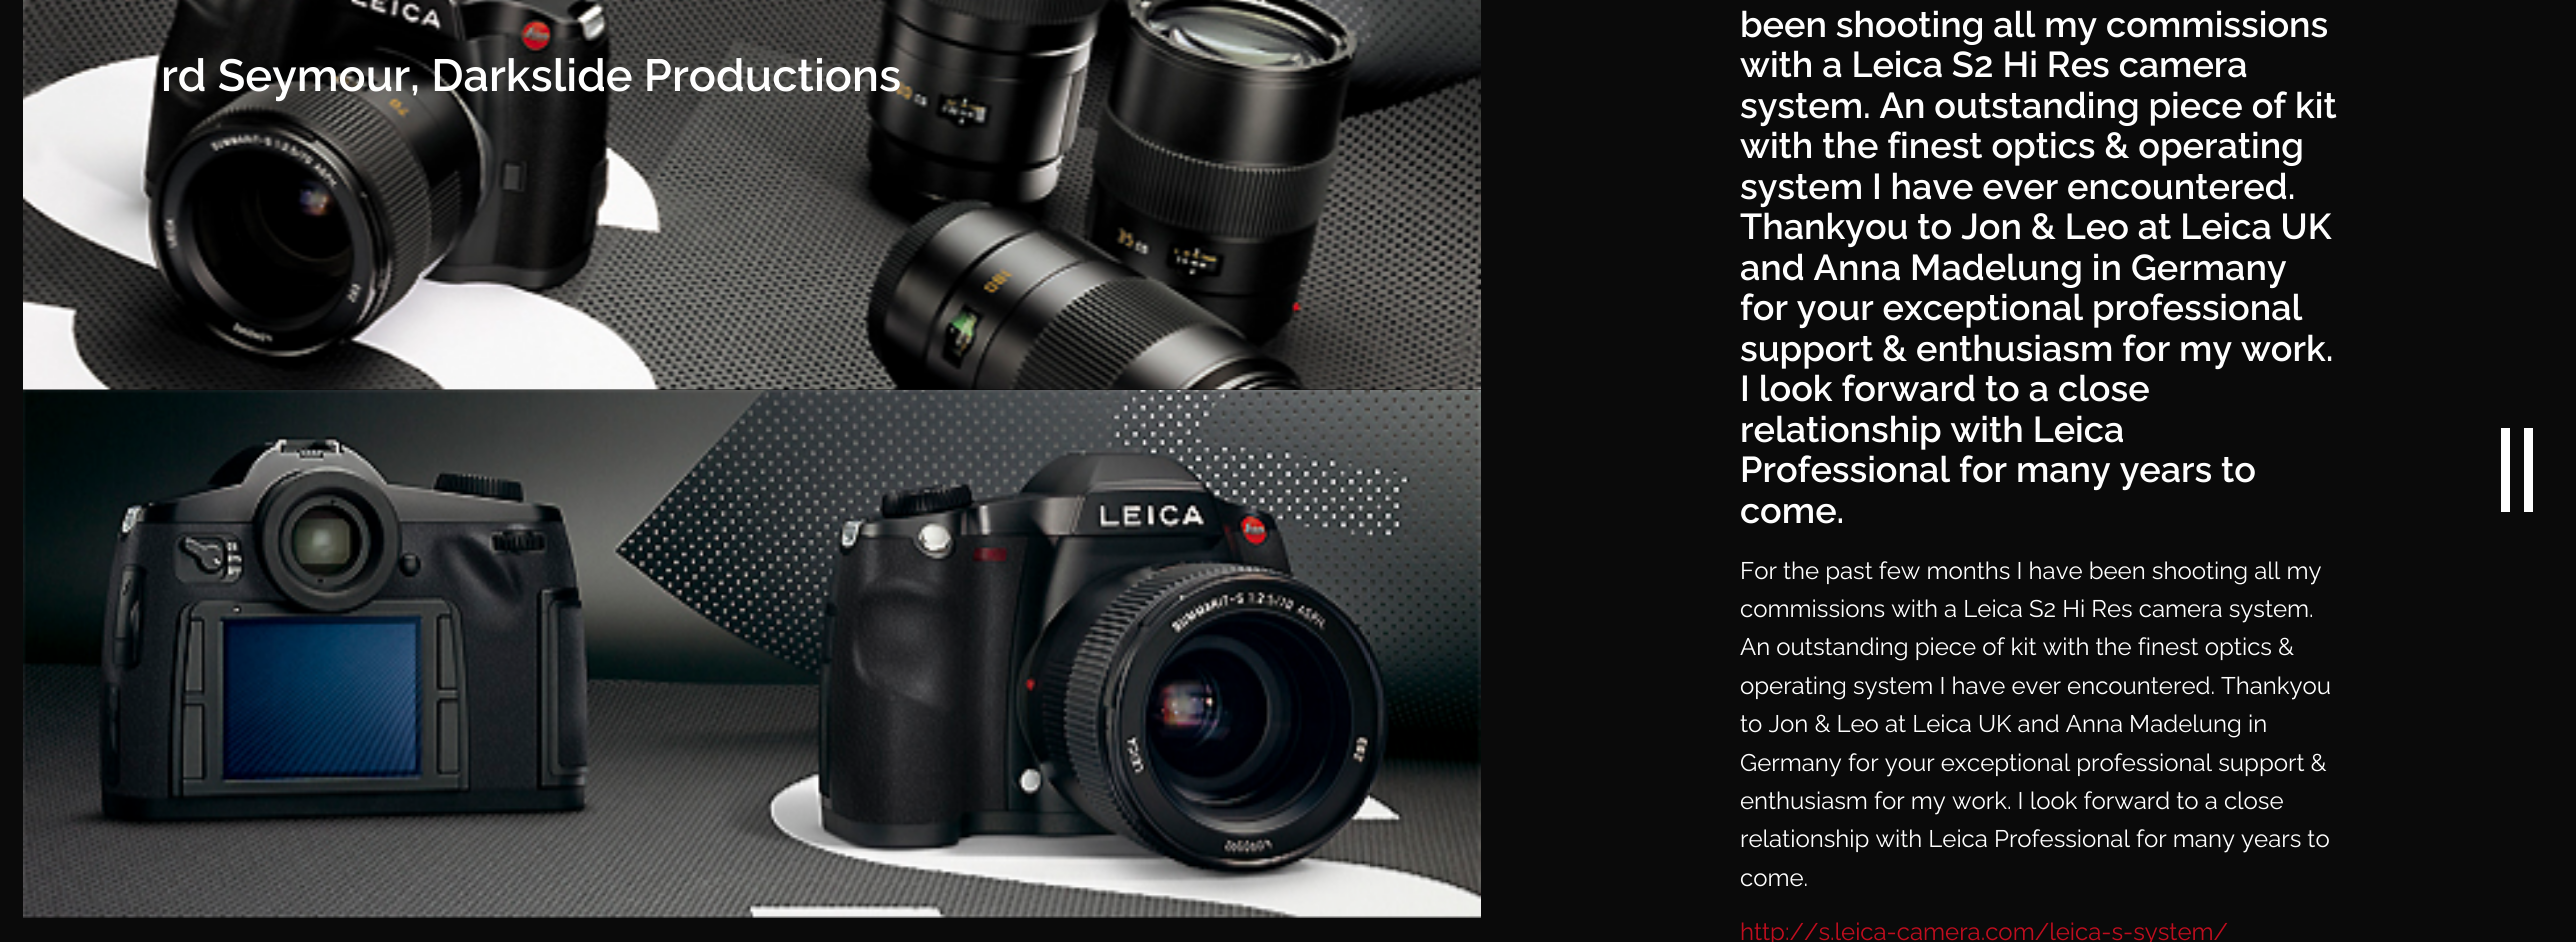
#include <cairo.h>
#include <math.h>
#include <stddef.h>


static void rgb(cairo_t *cr, int r, int g, int b)
{
	cairo_set_source_rgb(cr, r / 255.0, g / 255.0, b / 255.0);
}

static void face(cairo_t *cr, const char *family, double size, int italic, int bold)
{
	cairo_select_font_face(cr, family, italic ? CAIRO_FONT_SLANT_ITALIC : CAIRO_FONT_SLANT_NORMAL,
		bold ? CAIRO_FONT_WEIGHT_BOLD : CAIRO_FONT_WEIGHT_NORMAL);
	cairo_set_font_size(cr, size);
}

static void label(cairo_t *cr, double x, double y, const char *s)
{
	cairo_move_to(cr, x, y);
	cairo_show_text(cr, s);
}

static void image(cairo_t *cr, const char *path, double x, double y, double w, double h)
{
	cairo_surface_t *image = cairo_image_surface_create_from_png(path);
	cairo_save(cr);
	cairo_set_source_surface(cr, image, x, y);
	cairo_rectangle(cr, x, y, w, h);
	cairo_fill(cr);
	cairo_restore(cr);
	cairo_surface_destroy(image);
}

static void draw(cairo_t *cr) {
	rgb(cr, 10, 10, 10);
	cairo_paint(cr);
	image(cr, "image0.png", 23, 0, 1458, 390);
	face(cr, "Raleway SemiBold", 45.1, 0, 0);
	rgb(cr, 254, 254, 254);
	label(cr, 161, 91, "rd Seymour, Darkslide Productions");
	image(cr, "image1.png", 23, 390, 1458, 528);
	face(cr, "Raleway SemiBold", 36, 0, 0);
	label(cr, 1740, 37, "been shooting all my commissions");
	label(cr, 1740, 77, "with a Leica S2 Hi Res camera");
	label(cr, 1740, 118, "system. An outstanding piece of kit");
	label(cr, 1740, 158, "with the finest optics & operating");
	label(cr, 1740, 199, "system I have ever encountered.");
	label(cr, 1740, 239, "Thankyou to Jon & Leo at Leica UK");
	label(cr, 1740, 280, "and Anna Madelung in Germany");
	label(cr, 1740, 320, "for your exceptional professional");
	label(cr, 1740, 361, "support & enthusiasm for my work.");
	label(cr, 1740, 401, "I look forward to a close");
	label(cr, 1740, 442, "relationship with Leica");
	label(cr, 1740, 482, "Professional for many years to");
	label(cr, 1740, 523, "come.");
	face(cr, "Raleway", 24, 0, 0);
	label(cr, 1740, 579, "For the past few months I have been shooting all my");
	label(cr, 1740, 617, "commissions with a Leica S2 Hi Res camera system.");
	label(cr, 1740, 655, "An outstanding piece of kit with the finest optics &");
	label(cr, 1740, 694, "operating system I have ever encountered. Thankyou");
	label(cr, 1740, 732, "to Jon & Leo at Leica UK and Anna Madelung in");
	label(cr, 1740, 771, "Germany for your exceptional professional support &");
	label(cr, 1740, 809, "enthusiasm for my work. I look forward to a close");
	label(cr, 1740, 847, "relationship with Leica Professional for many years to");
	label(cr, 1740, 886, "come.");
	rgb(cr, 192, 13, 30);
	label(cr, 1740, 940, "http://s.leica-camera.com/leica-s-system/");
	rgb(cr, 254, 254, 254);
	cairo_new_path(cr);
	cairo_move_to(cr, 2533, 428);
	cairo_line_to(cr, 2533, 512);
	cairo_line_to(cr, 2524, 512);
	cairo_line_to(cr, 2524, 428);
	cairo_close_path(cr);
	cairo_move_to(cr, 2510, 428);
	cairo_line_to(cr, 2510, 512);
	cairo_line_to(cr, 2501, 512);
	cairo_line_to(cr, 2501, 428);
	cairo_close_path(cr);
	cairo_fill(cr);
}

int main(void) {
	cairo_surface_t *surface = cairo_image_surface_create(CAIRO_FORMAT_RGB24, 2576, 942);
	cairo_t *cr = cairo_create(surface);
	cairo_font_options_t *options = cairo_font_options_create();
	cairo_font_options_set_hint_metrics(options, CAIRO_HINT_METRICS_OFF);
	cairo_font_options_set_hint_style(options, CAIRO_HINT_STYLE_NONE);
	cairo_set_font_options(cr, options);
	cairo_set_miter_limit(cr, 4);
	draw(cr);
	cairo_surface_write_to_png(surface, "render.png");
	cairo_font_options_destroy(options);
	cairo_destroy(cr);
	cairo_surface_destroy(surface);
	return 0;
}
